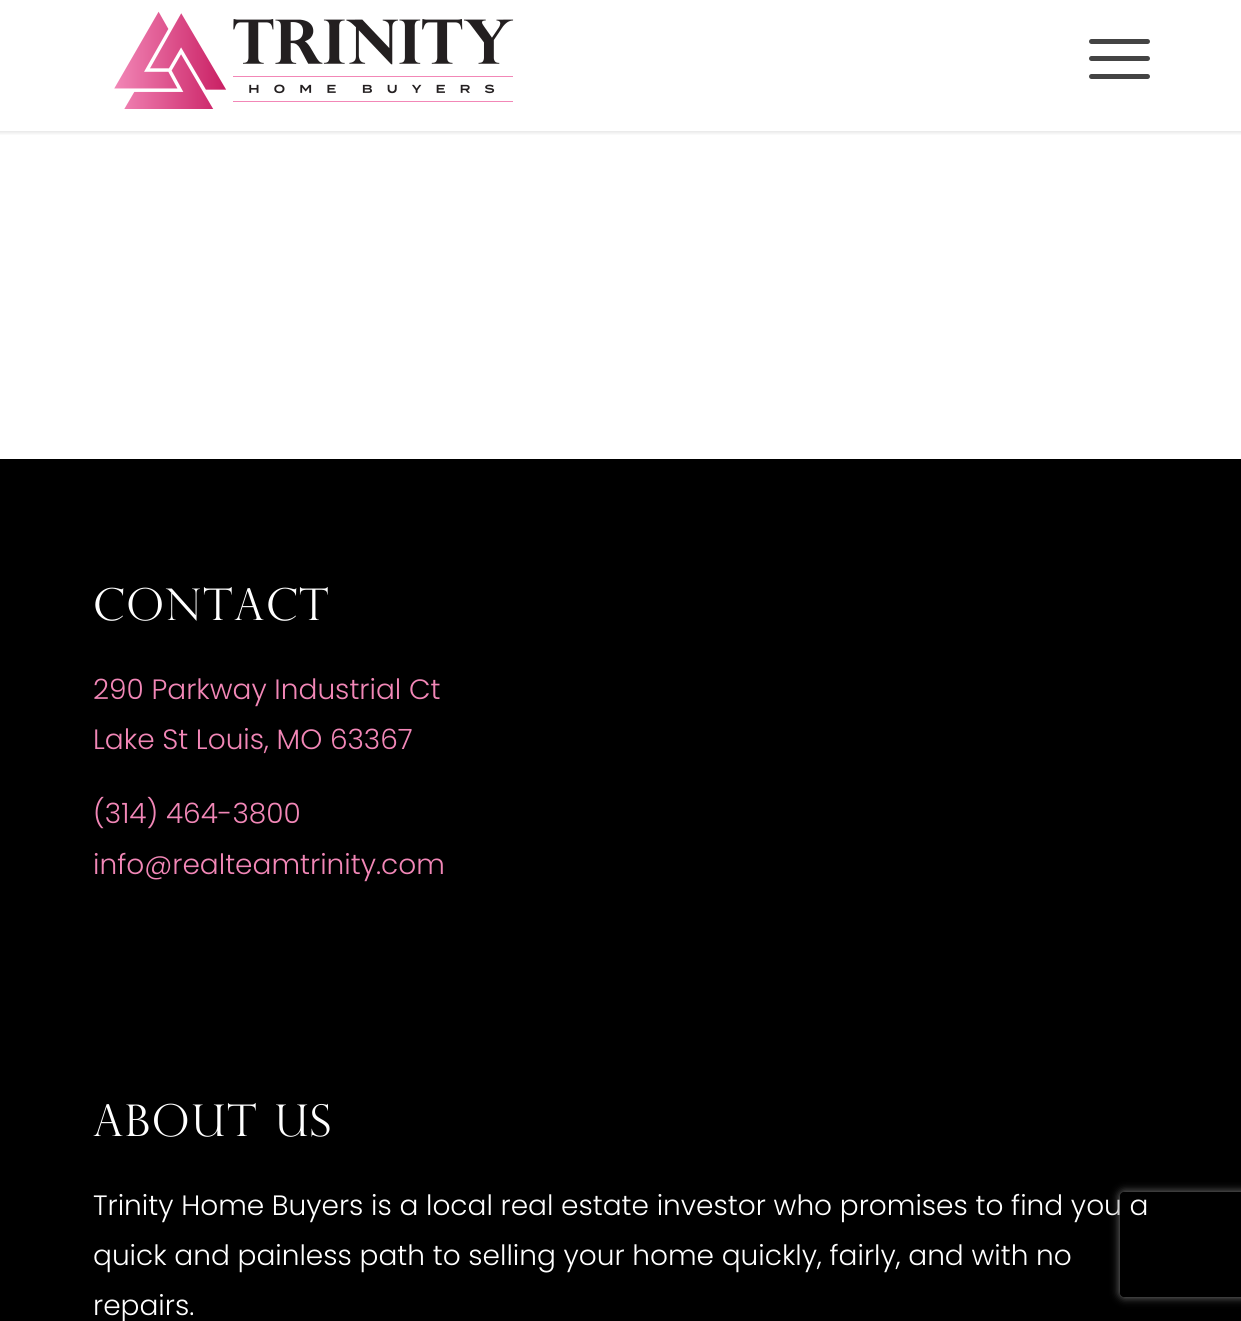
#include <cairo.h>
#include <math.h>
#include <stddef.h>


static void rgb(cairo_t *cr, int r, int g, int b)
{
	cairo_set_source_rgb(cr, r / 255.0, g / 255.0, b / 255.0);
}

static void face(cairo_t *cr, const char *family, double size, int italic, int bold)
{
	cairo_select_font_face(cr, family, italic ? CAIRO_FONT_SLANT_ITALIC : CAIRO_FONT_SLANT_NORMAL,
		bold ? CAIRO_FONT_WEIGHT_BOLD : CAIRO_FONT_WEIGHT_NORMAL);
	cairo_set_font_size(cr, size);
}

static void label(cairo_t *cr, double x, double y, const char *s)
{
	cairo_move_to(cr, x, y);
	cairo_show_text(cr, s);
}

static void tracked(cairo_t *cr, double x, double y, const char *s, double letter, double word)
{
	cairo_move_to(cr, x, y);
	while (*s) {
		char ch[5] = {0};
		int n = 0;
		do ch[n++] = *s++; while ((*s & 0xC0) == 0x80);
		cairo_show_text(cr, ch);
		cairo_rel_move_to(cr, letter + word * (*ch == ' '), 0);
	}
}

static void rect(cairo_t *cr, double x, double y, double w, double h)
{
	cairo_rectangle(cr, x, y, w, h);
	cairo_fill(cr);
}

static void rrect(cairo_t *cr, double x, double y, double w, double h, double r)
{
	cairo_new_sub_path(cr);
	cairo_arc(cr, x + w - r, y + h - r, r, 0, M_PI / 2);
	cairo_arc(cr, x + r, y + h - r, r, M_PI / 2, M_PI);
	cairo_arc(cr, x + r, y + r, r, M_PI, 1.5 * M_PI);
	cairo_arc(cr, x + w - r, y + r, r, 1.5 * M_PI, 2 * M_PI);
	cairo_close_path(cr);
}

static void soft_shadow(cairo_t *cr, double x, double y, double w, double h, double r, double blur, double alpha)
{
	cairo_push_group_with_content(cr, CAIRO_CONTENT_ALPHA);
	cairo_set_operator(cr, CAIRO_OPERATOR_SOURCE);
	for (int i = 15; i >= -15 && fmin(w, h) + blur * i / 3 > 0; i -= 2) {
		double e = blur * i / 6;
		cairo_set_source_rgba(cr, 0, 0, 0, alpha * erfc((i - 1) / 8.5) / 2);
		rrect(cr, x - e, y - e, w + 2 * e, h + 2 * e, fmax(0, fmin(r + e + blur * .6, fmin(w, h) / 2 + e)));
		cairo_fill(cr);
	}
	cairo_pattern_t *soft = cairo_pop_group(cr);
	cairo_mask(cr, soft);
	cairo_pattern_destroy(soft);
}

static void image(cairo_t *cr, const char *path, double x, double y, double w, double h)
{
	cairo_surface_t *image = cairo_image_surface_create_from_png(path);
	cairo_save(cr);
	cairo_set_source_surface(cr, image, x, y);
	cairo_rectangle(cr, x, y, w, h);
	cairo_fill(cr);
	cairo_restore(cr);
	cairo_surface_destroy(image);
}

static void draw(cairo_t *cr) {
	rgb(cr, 255, 255, 255);
	cairo_paint(cr);
	cairo_save(cr);
	cairo_rectangle(cr, 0, 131, 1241, 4);
	cairo_clip(cr);
	rgb(cr, 0, 0, 0);
	soft_shadow(cr, -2, -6, 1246, 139, 0, 2, 0.1);
	cairo_restore(cr);
	image(cr, "image0.png", 114, 11, 400, 98);
	rgb(cr, 68, 68, 68);
	rrect(cr, 1089, 56, 61, 5, 2.5);
	cairo_fill(cr);
	rrect(cr, 1089, 39, 61, 5, 2.5);
	cairo_fill(cr);
	rrect(cr, 1089, 74, 61, 5, 2.5);
	cairo_fill(cr);
	rgb(cr, 0, 0, 0);
	rect(cr, 0, 459, 1241, 862);
	face(cr, "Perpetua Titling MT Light", 43.75, 0, 0);
	rgb(cr, 255, 255, 255);
	tracked(cr, 93, 620, "Contact", 1.75, 0);
	face(cr, "Poppins Light", 28, 0, 0);
	rgb(cr, 242, 135, 183);
	label(cr, 93, 699, "290 Parkway Industrial Ct");
	label(cr, 93, 749, "Lake St Louis, MO 63367");
	label(cr, 93, 823, "(314) 464-3800");
	label(cr, 93, 874, "info@realteamtrinity.com");
	face(cr, "Perpetua Titling MT Light", 43.75, 0, 0);
	rgb(cr, 255, 255, 255);
	tracked(cr, 93, 1136, "About Us", 1.75, 0);
	face(cr, "Poppins Light", 28, 0, 0);
	label(cr, 93, 1215, "Trinity Home Buyers is a local real estate investor who promises to find you a");
	label(cr, 93, 1265, "quick and painless path to selling your home quickly, fairly, and with no");
	label(cr, 93, 1315, "repairs.");
	cairo_save(cr);
	cairo_set_fill_rule(cr, CAIRO_FILL_RULE_EVEN_ODD);
	cairo_new_path(cr);
	cairo_move_to(cr, 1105, 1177);
	cairo_line_to(cr, 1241, 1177);
	cairo_line_to(cr, 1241, 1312);
	cairo_line_to(cr, 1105, 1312);
	cairo_close_path(cr);
	cairo_move_to(cr, 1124, 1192);
	cairo_line_to(cr, 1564, 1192);
	cairo_curve_to(cr, 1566, 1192, 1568, 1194, 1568, 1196);
	cairo_line_to(cr, 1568, 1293);
	cairo_curve_to(cr, 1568, 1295, 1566, 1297, 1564, 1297);
	cairo_line_to(cr, 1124, 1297);
	cairo_curve_to(cr, 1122, 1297, 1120, 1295, 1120, 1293);
	cairo_line_to(cr, 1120, 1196);
	cairo_curve_to(cr, 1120, 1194, 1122, 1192, 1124, 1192);
	cairo_close_path(cr);
	cairo_clip(cr);
	rgb(cr, 128, 128, 128);
	soft_shadow(cr, 1120, 1192, 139, 105, 4, 4.5, 1);
	cairo_restore(cr);
}

int main(void) {
	cairo_surface_t *surface = cairo_image_surface_create(CAIRO_FORMAT_RGB24, 1241, 1321);
	cairo_t *cr = cairo_create(surface);
	cairo_font_options_t *options = cairo_font_options_create();
	cairo_font_options_set_hint_metrics(options, CAIRO_HINT_METRICS_OFF);
	cairo_font_options_set_hint_style(options, CAIRO_HINT_STYLE_NONE);
	cairo_set_font_options(cr, options);
	cairo_set_miter_limit(cr, 4);
	draw(cr);
	cairo_surface_write_to_png(surface, "render.png");
	cairo_font_options_destroy(options);
	cairo_destroy(cr);
	cairo_surface_destroy(surface);
	return 0;
}
